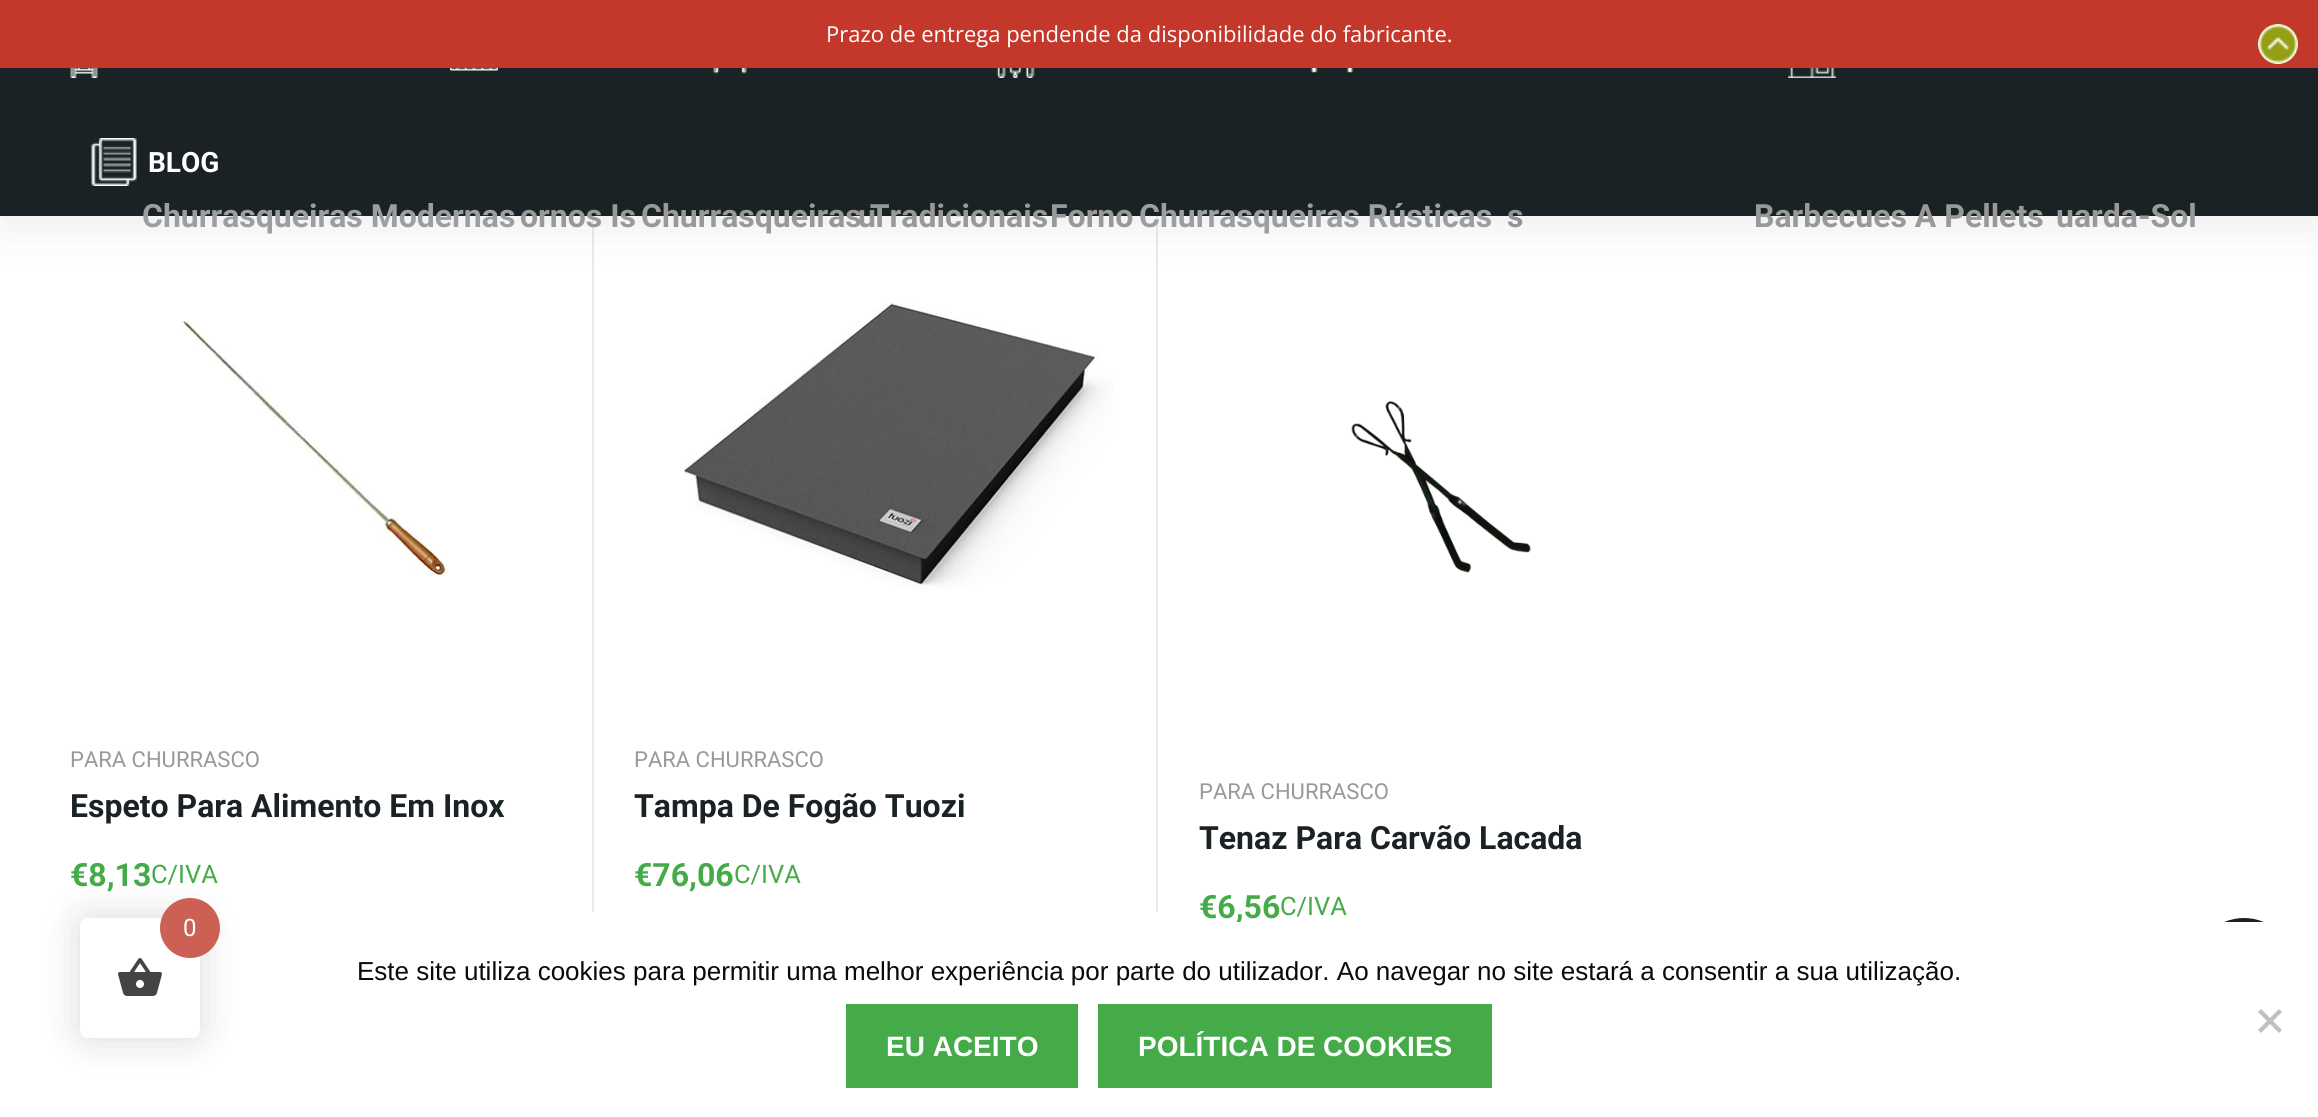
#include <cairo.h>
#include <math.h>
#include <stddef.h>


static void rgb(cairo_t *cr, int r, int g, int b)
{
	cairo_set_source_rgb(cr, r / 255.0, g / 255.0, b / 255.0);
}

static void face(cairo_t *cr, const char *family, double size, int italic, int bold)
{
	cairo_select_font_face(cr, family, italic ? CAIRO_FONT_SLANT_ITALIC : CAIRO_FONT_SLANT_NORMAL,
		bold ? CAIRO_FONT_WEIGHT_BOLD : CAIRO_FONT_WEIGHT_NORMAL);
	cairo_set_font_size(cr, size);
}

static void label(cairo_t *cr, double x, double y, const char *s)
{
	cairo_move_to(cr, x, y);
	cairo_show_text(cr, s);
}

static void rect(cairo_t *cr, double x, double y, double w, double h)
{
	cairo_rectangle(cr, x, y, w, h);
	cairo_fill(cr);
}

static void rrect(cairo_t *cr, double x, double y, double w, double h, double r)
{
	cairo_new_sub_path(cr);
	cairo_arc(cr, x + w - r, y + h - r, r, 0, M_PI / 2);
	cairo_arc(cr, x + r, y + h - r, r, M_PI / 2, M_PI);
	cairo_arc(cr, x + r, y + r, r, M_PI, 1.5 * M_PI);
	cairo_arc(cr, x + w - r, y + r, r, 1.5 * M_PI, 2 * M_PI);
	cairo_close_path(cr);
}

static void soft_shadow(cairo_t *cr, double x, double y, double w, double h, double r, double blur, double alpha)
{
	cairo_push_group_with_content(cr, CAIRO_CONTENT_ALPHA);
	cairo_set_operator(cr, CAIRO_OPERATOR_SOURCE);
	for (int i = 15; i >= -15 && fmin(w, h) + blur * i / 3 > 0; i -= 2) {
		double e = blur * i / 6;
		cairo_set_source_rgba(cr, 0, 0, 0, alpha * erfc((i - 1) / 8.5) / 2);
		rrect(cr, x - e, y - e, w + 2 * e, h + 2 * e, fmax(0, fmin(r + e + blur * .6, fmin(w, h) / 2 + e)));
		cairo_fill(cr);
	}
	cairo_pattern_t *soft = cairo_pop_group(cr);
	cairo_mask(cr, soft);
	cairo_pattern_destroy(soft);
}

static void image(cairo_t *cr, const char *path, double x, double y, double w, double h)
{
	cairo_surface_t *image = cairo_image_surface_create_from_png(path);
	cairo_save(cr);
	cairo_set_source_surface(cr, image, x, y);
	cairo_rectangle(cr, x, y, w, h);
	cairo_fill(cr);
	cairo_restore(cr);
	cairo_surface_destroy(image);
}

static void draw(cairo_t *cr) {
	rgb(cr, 255, 255, 255);
	cairo_paint(cr);
	rgb(cr, 235, 235, 235);
	rect(cr, 592, 216, 2, 696);
	image(cr, "image9.png", 684, 302, 429, 288);
	rect(cr, 1156, 216, 2, 696);
	rgb(cr, 0, 0, 0);
	soft_shadow(cr, 0, 4, 2318, 216, 0, 28, 0.09);
	rgb(cr, 195, 56, 43);
	rect(cr, 0, 0, 2318, 68);
	face(cr, "Open Sans", 22, 0, 0);
	rgb(cr, 255, 255, 255);
	label(cr, 826, 42, "Prazo de entrega pendende da disponibilidade do fabricante.");
	rgb(cr, 148, 159, 21);
	cairo_new_path(cr);
	cairo_arc(cr, 2278, 44, 20, 0, 2 * M_PI);
	cairo_fill(cr);
	image(cr, "image0.png", 2258, 24, 40, 40);
	rgb(cr, 26, 34, 37);
	rect(cr, 0, 68, 2318, 148);
	image(cr, "image1.png", 1788, 68, 48, 10);
	image(cr, "image2.png", 91, 138, 46, 48);
	face(cr, "Roboto", 28, 0, 1);
	rgb(cr, 255, 255, 255);
	label(cr, 148, 172, "BLOG");
	image(cr, "image3.png", 70, 68, 28, 10);
	face(cr, "Roboto", 32, 0, 1);
	rgb(cr, 155, 159, 160);
	label(cr, 142, 227, "Churrasqueiras Modernas");
	rgb(cr, 153, 153, 153);
	label(cr, 641, 227, "Churrasqueiras Tradicionais");
	rgb(cr, 155, 159, 160);
	label(cr, 1139, 227, "Churrasqueiras Rústicas");
	image(cr, "image4.png", 450, 68, 48, 3);
	rgb(cr, 153, 153, 153);
	label(cr, 520, 227, "ornos Is");
	label(cr, 1050, 227, "Forno");
	image(cr, "image5.png", 713, 68, 34, 6);
	label(cr, 858, 227, "u");
	label(cr, 1754, 227, "Barbecues A Pellets");
	image(cr, "image6.png", 1310, 68, 44, 5);
	label(cr, 2056, 227, "uarda-Sol");
	image(cr, "image7.png", 996, 68, 39, 10);
	rgb(cr, 145, 149, 150);
	label(cr, 1507, 227, "s");
	image(cr, "image8.png", 181, 321, 267, 255);
	face(cr, "Roboto", 22, 0, 0);
	rgb(cr, 153, 153, 153);
	label(cr, 70, 767, "PARA CHURRASCO");
	face(cr, "Roboto", 32, 0, 1);
	rgb(cr, 26, 34, 37);
	label(cr, 70, 817, "Espeto Para Alimento Em Inox");
	rgb(cr, 69, 171, 73);
	label(cr, 70, 886, "€8,13");
	face(cr, "Roboto", 25.5, 0, 0);
	label(cr, 151, 883, "C/IVA");
	face(cr, "Roboto", 22, 0, 0);
	rgb(cr, 153, 153, 153);
	label(cr, 634, 767, "PARA CHURRASCO");
	face(cr, "Roboto", 32, 0, 1);
	rgb(cr, 26, 34, 37);
	label(cr, 634, 817, "Tampa De Fogão Tuozi");
	rgb(cr, 69, 171, 73);
	label(cr, 634, 886, "€76,06");
	face(cr, "Roboto", 25.5, 0, 0);
	label(cr, 734, 883, "C/IVA");
	image(cr, "image10.png", 1351, 401, 180, 172);
	face(cr, "Roboto", 22, 0, 0);
	rgb(cr, 153, 153, 153);
	label(cr, 1199, 799, "PARA CHURRASCO");
	face(cr, "Roboto", 32, 0, 1);
	rgb(cr, 26, 34, 37);
	label(cr, 1199, 849, "Tenaz Para Carvão Lacada");
	rgb(cr, 69, 171, 73);
	label(cr, 1199, 918, "€6,56");
	face(cr, "Roboto", 25.5, 0, 0);
	label(cr, 1280, 915, "C/IVA");
	rgb(cr, 0, 0, 0);
	soft_shadow(cr, 80, 918, 120, 120, 8, 20, 0.15);
	rgb(cr, 255, 255, 255);
	rrect(cr, 80, 918, 120, 120, 8);
	cairo_fill(cr);
	rgb(cr, 204, 96, 85);
	cairo_arc(cr, 190, 928, 30, 0, 2 * M_PI);
	cairo_fill(cr);
	face(cr, "Roboto", 24, 0, 0);
	rgb(cr, 255, 255, 255);
	label(cr, 183, 936, "0");
	image(cr, "image11.png", 118, 958, 44, 38);
	rgb(cr, 32, 30, 30);
	cairo_arc(cr, 2244, 968, 50, 0, 2 * M_PI);
	cairo_fill(cr);
	rgb(cr, 255, 255, 255);
	rect(cr, 1236, 922, 1058, 96);
	face(cr, "Liberation Sans", 26, 0, 0);
	rgb(cr, 10, 10, 10);
	label(cr, 357, 980, "Este site utiliza cookies para permitir uma melhor experiência por parte do utilizador. Ao navegar no site estará a consentir a sua utilização.");
	rgb(cr, 192, 192, 192);
	cairo_new_path(cr);
	cairo_move_to(cr, 2279, 1009);
	cairo_line_to(cr, 2282, 1012);
	cairo_line_to(cr, 2261, 1033);
	cairo_line_to(cr, 2258, 1030);
	cairo_close_path(cr);
	cairo_fill(cr);
	cairo_new_path(cr);
	cairo_move_to(cr, 2258, 1012);
	cairo_line_to(cr, 2261, 1009);
	cairo_line_to(cr, 2282, 1030);
	cairo_line_to(cr, 2279, 1033);
	cairo_close_path(cr);
	cairo_fill(cr);
	rgb(cr, 69, 171, 73);
	rect(cr, 846, 1004, 232, 84);
	face(cr, "Liberation Sans", 28, 0, 1);
	rgb(cr, 255, 255, 255);
	label(cr, 886, 1056, "EU ACEITO");
	rgb(cr, 69, 171, 73);
	rect(cr, 1098, 1004, 394, 84);
	rgb(cr, 255, 255, 255);
	label(cr, 1138, 1056, "POLÍTICA DE COOKIES");
}

int main(void) {
	cairo_surface_t *surface = cairo_image_surface_create(CAIRO_FORMAT_RGB24, 2318, 1117);
	cairo_t *cr = cairo_create(surface);
	cairo_font_options_t *options = cairo_font_options_create();
	cairo_font_options_set_hint_metrics(options, CAIRO_HINT_METRICS_OFF);
	cairo_font_options_set_hint_style(options, CAIRO_HINT_STYLE_NONE);
	cairo_set_font_options(cr, options);
	cairo_set_miter_limit(cr, 4);
	draw(cr);
	cairo_surface_write_to_png(surface, "render.png");
	cairo_font_options_destroy(options);
	cairo_destroy(cr);
	cairo_surface_destroy(surface);
	return 0;
}
